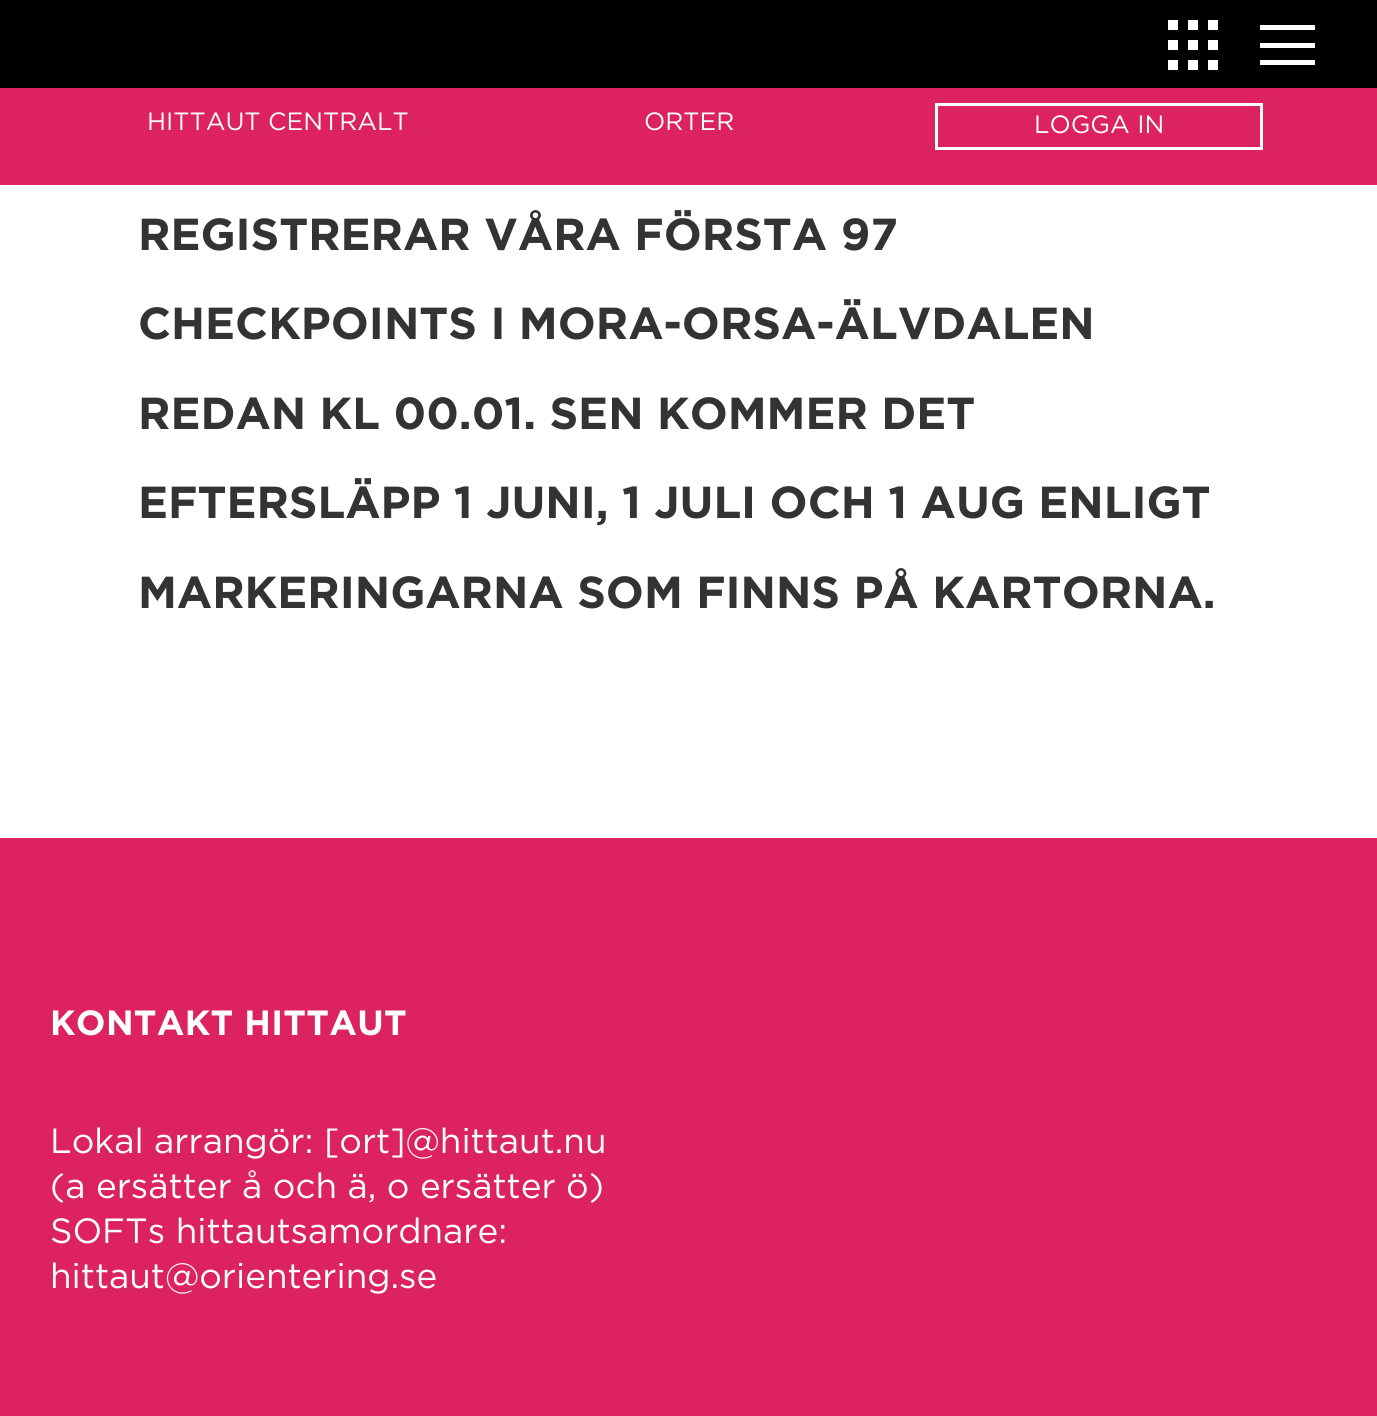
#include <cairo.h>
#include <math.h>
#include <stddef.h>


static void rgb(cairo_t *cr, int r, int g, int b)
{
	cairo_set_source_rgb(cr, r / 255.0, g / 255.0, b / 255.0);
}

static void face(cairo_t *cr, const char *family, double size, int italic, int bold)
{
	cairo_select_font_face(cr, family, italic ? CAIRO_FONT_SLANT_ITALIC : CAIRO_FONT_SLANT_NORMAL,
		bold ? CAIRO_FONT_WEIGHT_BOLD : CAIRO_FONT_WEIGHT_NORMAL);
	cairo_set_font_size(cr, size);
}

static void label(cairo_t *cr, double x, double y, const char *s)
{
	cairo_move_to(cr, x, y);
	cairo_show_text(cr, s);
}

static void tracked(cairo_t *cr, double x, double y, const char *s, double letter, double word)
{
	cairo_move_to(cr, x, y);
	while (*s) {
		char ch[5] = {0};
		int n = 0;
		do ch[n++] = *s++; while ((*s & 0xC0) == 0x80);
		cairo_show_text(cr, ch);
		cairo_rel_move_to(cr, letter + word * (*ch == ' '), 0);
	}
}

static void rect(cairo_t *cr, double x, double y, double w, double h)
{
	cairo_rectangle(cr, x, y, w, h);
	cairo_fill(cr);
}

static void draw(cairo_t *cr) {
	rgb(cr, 255, 255, 255);
	cairo_paint(cr);
	rgb(cr, 0, 0, 0);
	rect(cr, 0, 0, 1377, 88);
	rgb(cr, 255, 255, 255);
	rect(cr, 1168, 20, 10, 10);
	rect(cr, 1188, 20, 10, 10);
	rect(cr, 1208, 20, 10, 10);
	rect(cr, 1168, 40, 10, 10);
	rect(cr, 1188, 40, 10, 10);
	rect(cr, 1208, 40, 10, 10);
	rect(cr, 1168, 60, 10, 10);
	rect(cr, 1188, 60, 10, 10);
	rect(cr, 1208, 60, 10, 10);
	rect(cr, 1260, 43, 55, 5);
	rect(cr, 1260, 25, 55, 5);
	rect(cr, 1260, 60, 55, 5);
	rgb(cr, 221, 35, 95);
	rect(cr, 0, 88, 1377, 97);
	face(cr, "Gotham", 25, 0, 0);
	rgb(cr, 255, 255, 255);
	label(cr, 147, 130, "HITTAUT CENTRALT");
	label(cr, 644, 130, "ORTER");
	cairo_rectangle(cr, 936.5, 104.5, 325, 44);
	cairo_set_line_width(cr, 3);
	cairo_stroke(cr);
	label(cr, 1034, 133, "LOGGA IN");
	face(cr, "Gotham", 44.8, 0, 1);
	rgb(cr, 51, 51, 51);
	label(cr, 138, 250, "REGISTRERAR VÅRA FÖRSTA 97");
	label(cr, 138, 339, "CHECKPOINTS I MORA-ORSA-ÄLVDALEN");
	label(cr, 138, 429, "REDAN KL 00.01. SEN KOMMER DET");
	label(cr, 138, 518, "EFTERSLÄPP 1 JUNI, 1 JULI OCH 1 AUG ENLIGT");
	label(cr, 138, 608, "MARKERINGARNA SOM FINNS PÅ KARTORNA.");
	rgb(cr, 221, 35, 95);
	rect(cr, 0, 838, 1377, 578);
	face(cr, "Gotham", 35, 0, 1);
	rgb(cr, 255, 255, 255);
	tracked(cr, 50, 1035, "KONTAKT HITTAUT", 0.3, 0);
	face(cr, "Gotham", 35, 0, 0);
	label(cr, 50, 1153, "Lokal arrangör: [ort]@hittaut.nu");
	label(cr, 50, 1198, "(a ersätter å och ä, o ersätter ö)");
	label(cr, 50, 1243, "SOFTs hittautsamordnare:");
	label(cr, 50, 1288, "hittaut@orientering.se");
}

int main(void) {
	cairo_surface_t *surface = cairo_image_surface_create(CAIRO_FORMAT_RGB24, 1377, 1416);
	cairo_t *cr = cairo_create(surface);
	cairo_font_options_t *options = cairo_font_options_create();
	cairo_font_options_set_hint_metrics(options, CAIRO_HINT_METRICS_OFF);
	cairo_font_options_set_hint_style(options, CAIRO_HINT_STYLE_NONE);
	cairo_set_font_options(cr, options);
	cairo_set_miter_limit(cr, 4);
	draw(cr);
	cairo_surface_write_to_png(surface, "render.png");
	cairo_font_options_destroy(options);
	cairo_destroy(cr);
	cairo_surface_destroy(surface);
	return 0;
}
